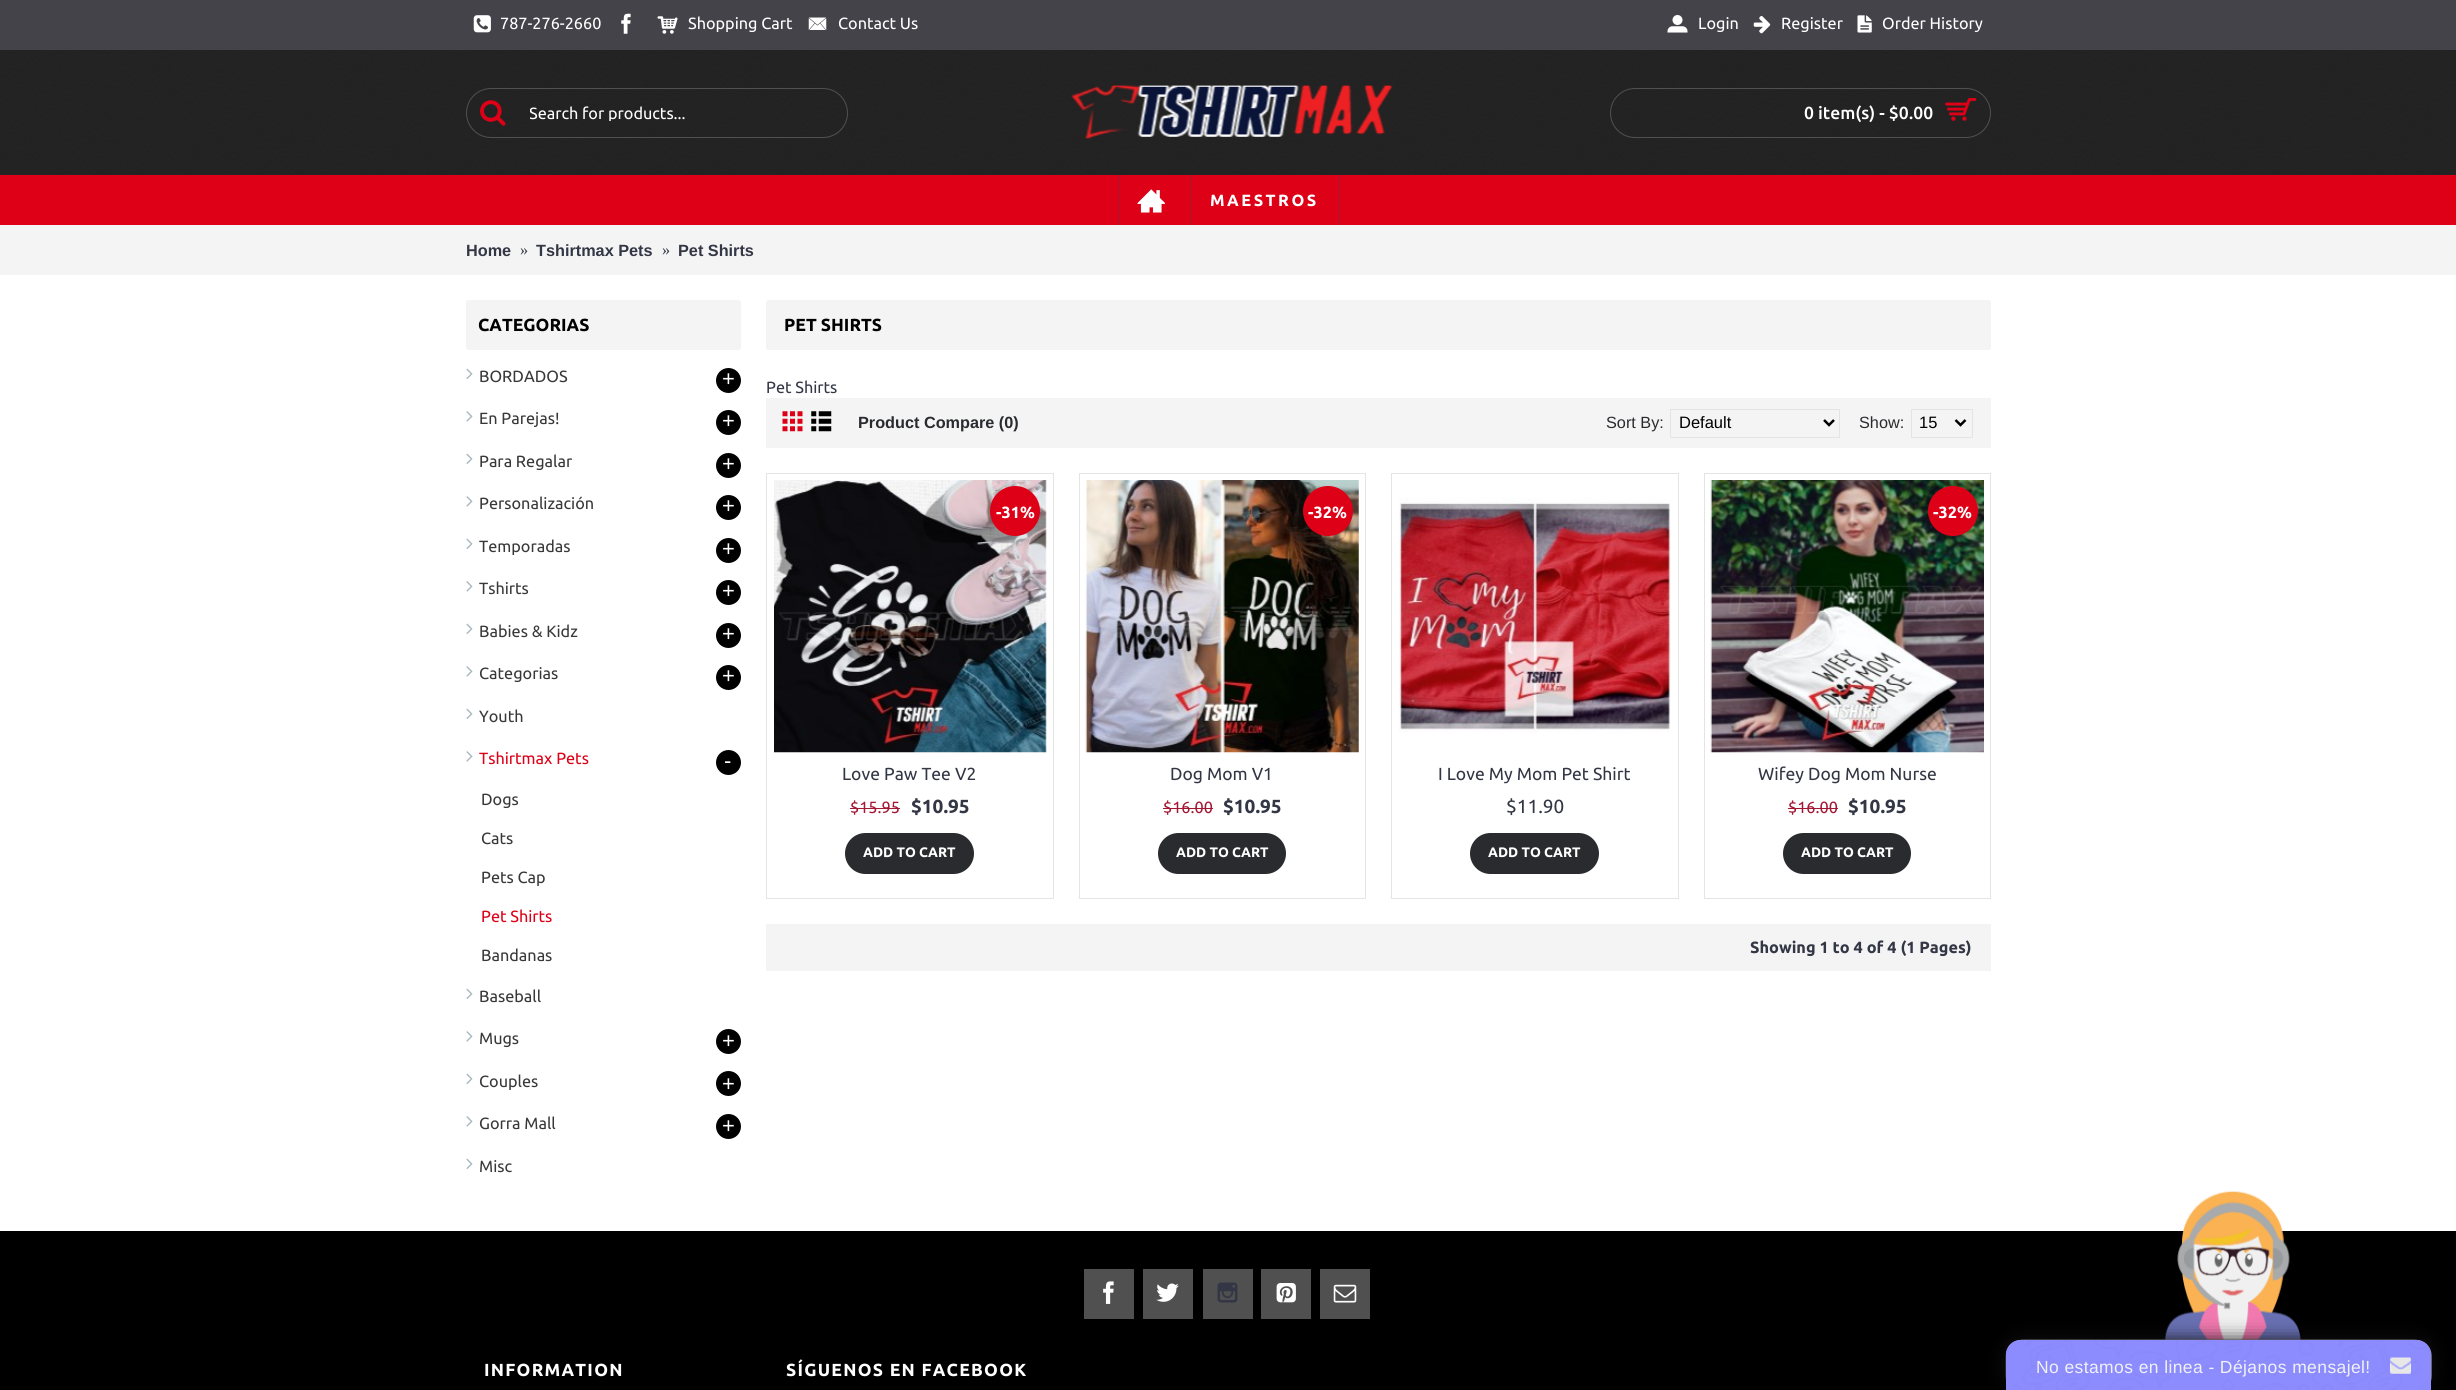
#include <cairo.h>
#include <math.h>
#include <stddef.h>


static void rgb(cairo_t *cr, int r, int g, int b)
{
	cairo_set_source_rgb(cr, r / 255.0, g / 255.0, b / 255.0);
}

static void face(cairo_t *cr, const char *family, double size, int italic, int bold)
{
	cairo_select_font_face(cr, family, italic ? CAIRO_FONT_SLANT_ITALIC : CAIRO_FONT_SLANT_NORMAL,
		bold ? CAIRO_FONT_WEIGHT_BOLD : CAIRO_FONT_WEIGHT_NORMAL);
	cairo_set_font_size(cr, size);
}

static void label(cairo_t *cr, double x, double y, const char *s)
{
	cairo_move_to(cr, x, y);
	cairo_show_text(cr, s);
}

static void tracked(cairo_t *cr, double x, double y, const char *s, double letter, double word)
{
	cairo_move_to(cr, x, y);
	while (*s) {
		char ch[5] = {0};
		int n = 0;
		do ch[n++] = *s++; while ((*s & 0xC0) == 0x80);
		cairo_show_text(cr, ch);
		cairo_rel_move_to(cr, letter + word * (*ch == ' '), 0);
	}
}

static void rect(cairo_t *cr, double x, double y, double w, double h)
{
	cairo_rectangle(cr, x, y, w, h);
	cairo_fill(cr);
}

static void rrect(cairo_t *cr, double x, double y, double w, double h, double r)
{
	cairo_new_sub_path(cr);
	cairo_arc(cr, x + w - r, y + h - r, r, 0, M_PI / 2);
	cairo_arc(cr, x + r, y + h - r, r, M_PI / 2, M_PI);
	cairo_arc(cr, x + r, y + r, r, M_PI, 1.5 * M_PI);
	cairo_arc(cr, x + w - r, y + r, r, 1.5 * M_PI, 2 * M_PI);
	cairo_close_path(cr);
}

static void soft_shadow(cairo_t *cr, double x, double y, double w, double h, double r, double blur, double alpha)
{
	cairo_push_group_with_content(cr, CAIRO_CONTENT_ALPHA);
	cairo_set_operator(cr, CAIRO_OPERATOR_SOURCE);
	for (int i = 15; i >= -15 && fmin(w, h) + blur * i / 3 > 0; i -= 2) {
		double e = blur * i / 6;
		cairo_set_source_rgba(cr, 0, 0, 0, alpha * erfc((i - 1) / 8.5) / 2);
		rrect(cr, x - e, y - e, w + 2 * e, h + 2 * e, fmax(0, fmin(r + e + blur * .6, fmin(w, h) / 2 + e)));
		cairo_fill(cr);
	}
	cairo_pattern_t *soft = cairo_pop_group(cr);
	cairo_mask(cr, soft);
	cairo_pattern_destroy(soft);
}

static void image(cairo_t *cr, const char *path, double x, double y, double w, double h)
{
	cairo_surface_t *image = cairo_image_surface_create_from_png(path);
	cairo_save(cr);
	cairo_set_source_surface(cr, image, x, y);
	cairo_rectangle(cr, x, y, w, h);
	cairo_fill(cr);
	cairo_restore(cr);
	cairo_surface_destroy(image);
}

static void draw(cairo_t *cr) {
	rgb(cr, 255, 255, 255);
	cairo_paint(cr);
	image(cr, "image0.png", 0, 50, 2456, 125);
	cairo_set_source_rgba(cr, 0, 0, 0, 0.85);
	rect(cr, 0, 50, 2456, 125);
	rgb(cr, 68, 67, 73);
	rect(cr, 0, 0, 2456, 50);
	image(cr, "image1.png", 473, 15, 18, 18);
	face(cr, "Ubuntu", 16.25, 0, 0);
	rgb(cr, 255, 255, 255);
	label(cr, 500, 29, "787-276-2660");
	image(cr, "image2.png", 621, 13, 10, 21);
	image(cr, "image3.png", 657, 16, 21, 18);
	label(cr, 688, 29, "Shopping Cart");
	image(cr, "image4.png", 808, 17, 19, 13);
	label(cr, 838, 29, "Contact Us");
	image(cr, "image5.png", 1667, 15, 21, 18);
	label(cr, 1698, 29, "Login");
	image(cr, "image6.png", 1753, 16, 18, 18);
	label(cr, 1781, 29, "Register");
	image(cr, "image7.png", 1857, 15, 15, 18);
	label(cr, 1882, 29, "Order History");
	rrect(cr, 466.5, 88.5, 381, 49, 24.5);
	rgb(cr, 80, 80, 80);
	cairo_set_line_width(cr, 1);
	cairo_stroke(cr);
	image(cr, "image8.png", 480, 100, 26, 26);
	cairo_save(cr);
	cairo_rectangle(cr, 530, 104, 316, 17);
	cairo_clip(cr);
	rgb(cr, 255, 255, 255);
	label(cr, 529, 119, "Search for products...");
	cairo_restore(cr);
	image(cr, "image9.png", 1071, 85, 322, 54);
	rrect(cr, 1610.5, 88.5, 380, 49, 24.5);
	cairo_stroke(cr);
	face(cr, "Ubuntu Medium", 17.5, 0, 0);
	rgb(cr, 255, 255, 255);
	label(cr, 1804, 119, "0 item(s) - $0.00");
	image(cr, "image10.png", 1945, 98, 32, 23);
	rgb(cr, 221, 0, 23);
	rect(cr, 0, 175, 2456, 50);
	rgb(cr, 164, 23, 51);
	rect(cr, 1118, 175, 1, 50);
	image(cr, "image11.png", 1137, 189, 28, 24);
	rect(cr, 1338, 175, 1, 50);
	rect(cr, 1190, 175, 1, 50);
	face(cr, "Ubuntu", 16.25, 0, 1);
	rgb(cr, 255, 255, 255);
	tracked(cr, 1210, 206, "MAESTROS", 2.5, 0);
	rgb(cr, 244, 244, 244);
	rect(cr, 0, 225, 2456, 50);
	face(cr, "Liberation Sans", 16.25, 0, 1);
	rgb(cr, 51, 55, 69);
	label(cr, 466, 256, "Home");
	face(cr, "Liberation Serif", 16.25, 0, 0);
	label(cr, 520, 255, "»");
	face(cr, "Liberation Sans", 16.25, 0, 1);
	label(cr, 536, 256, "Tshirtmax Pets");
	face(cr, "Liberation Serif", 16.25, 0, 0);
	label(cr, 662, 255, "»");
	face(cr, "Liberation Sans", 16.25, 0, 1);
	label(cr, 678, 256, "Pet Shirts");
	rgb(cr, 244, 244, 244);
	rrect(cr, 466, 300, 275, 50, 2.5);
	cairo_fill(cr);
	face(cr, "Ubuntu", 17.5, 0, 1);
	rgb(cr, 0, 0, 0);
	label(cr, 478, 331, "CATEGORIAS");
	image(cr, "image12.png", 466, 368, 7, 11);
	face(cr, "Ubuntu", 16.25, 0, 0);
	rgb(cr, 56, 56, 56);
	label(cr, 479, 382, "BORDADOS");
	rgb(cr, 0, 0, 0);
	cairo_new_path(cr);
	cairo_arc(cr, 728.5, 380.5, 12.5, 0, 2 * M_PI);
	cairo_fill(cr);
	face(cr, "Liberation Sans", 22, 0, 0);
	rgb(cr, 255, 255, 255);
	label(cr, 722, 386, "+");
	image(cr, "image13.png", 466, 411, 7, 11);
	face(cr, "Ubuntu", 16.25, 0, 0);
	rgb(cr, 56, 56, 56);
	label(cr, 479, 424, "En Parejas!");
	rgb(cr, 0, 0, 0);
	cairo_new_path(cr);
	cairo_arc(cr, 728.5, 422.5, 12.5, 0, 2 * M_PI);
	cairo_fill(cr);
	face(cr, "Liberation Sans", 22, 0, 0);
	rgb(cr, 255, 255, 255);
	label(cr, 722, 428, "+");
	image(cr, "image12.png", 466, 453, 7, 11);
	face(cr, "Ubuntu", 16.25, 0, 0);
	rgb(cr, 56, 56, 56);
	label(cr, 479, 467, "Para Regalar");
	rgb(cr, 0, 0, 0);
	cairo_new_path(cr);
	cairo_arc(cr, 728.5, 465.5, 12.5, 0, 2 * M_PI);
	cairo_fill(cr);
	face(cr, "Liberation Sans", 22, 0, 0);
	rgb(cr, 255, 255, 255);
	label(cr, 722, 471, "+");
	image(cr, "image13.png", 466, 496, 7, 11);
	face(cr, "Ubuntu", 16.25, 0, 0);
	rgb(cr, 56, 56, 56);
	label(cr, 479, 509, "Personalización");
	rgb(cr, 0, 0, 0);
	cairo_new_path(cr);
	cairo_arc(cr, 728.5, 507.5, 12.5, 0, 2 * M_PI);
	cairo_fill(cr);
	face(cr, "Liberation Sans", 22, 0, 0);
	rgb(cr, 255, 255, 255);
	label(cr, 722, 513, "+");
	image(cr, "image12.png", 466, 538, 7, 11);
	face(cr, "Ubuntu", 16.25, 0, 0);
	rgb(cr, 56, 56, 56);
	label(cr, 479, 552, "Temporadas");
	rgb(cr, 0, 0, 0);
	cairo_new_path(cr);
	cairo_arc(cr, 728.5, 550.5, 12.5, 0, 2 * M_PI);
	cairo_fill(cr);
	face(cr, "Liberation Sans", 22, 0, 0);
	rgb(cr, 255, 255, 255);
	label(cr, 722, 556, "+");
	image(cr, "image13.png", 466, 581, 7, 11);
	face(cr, "Ubuntu", 16.25, 0, 0);
	rgb(cr, 56, 56, 56);
	label(cr, 479, 594, "Tshirts");
	rgb(cr, 0, 0, 0);
	cairo_new_path(cr);
	cairo_arc(cr, 728.5, 592.5, 12.5, 0, 2 * M_PI);
	cairo_fill(cr);
	face(cr, "Liberation Sans", 22, 0, 0);
	rgb(cr, 255, 255, 255);
	label(cr, 722, 598, "+");
	image(cr, "image12.png", 466, 623, 7, 11);
	face(cr, "Ubuntu", 16.25, 0, 0);
	rgb(cr, 56, 56, 56);
	label(cr, 479, 637, "Babies & Kidz");
	rgb(cr, 0, 0, 0);
	cairo_new_path(cr);
	cairo_arc(cr, 728.5, 635.5, 12.5, 0, 2 * M_PI);
	cairo_fill(cr);
	face(cr, "Liberation Sans", 22, 0, 0);
	rgb(cr, 255, 255, 255);
	label(cr, 722, 641, "+");
	image(cr, "image13.png", 466, 666, 7, 11);
	face(cr, "Ubuntu", 16.25, 0, 0);
	rgb(cr, 56, 56, 56);
	label(cr, 479, 679, "Categorias");
	rgb(cr, 0, 0, 0);
	cairo_new_path(cr);
	cairo_arc(cr, 728.5, 677.5, 12.5, 0, 2 * M_PI);
	cairo_fill(cr);
	face(cr, "Liberation Sans", 22, 0, 0);
	rgb(cr, 255, 255, 255);
	label(cr, 722, 683, "+");
	image(cr, "image12.png", 466, 708, 7, 11);
	face(cr, "Ubuntu", 16.25, 0, 0);
	rgb(cr, 56, 56, 56);
	label(cr, 479, 722, "Youth");
	image(cr, "image13.png", 466, 751, 7, 11);
	rgb(cr, 221, 0, 23);
	label(cr, 479, 764, "Tshirtmax Pets");
	rgb(cr, 0, 0, 0);
	cairo_new_path(cr);
	cairo_arc(cr, 728.5, 762.5, 12.5, 0, 2 * M_PI);
	cairo_fill(cr);
	face(cr, "Liberation Sans", 22, 0, 0);
	rgb(cr, 255, 255, 255);
	label(cr, 724, 768, "-");
	face(cr, "Ubuntu", 16.25, 0, 0);
	rgb(cr, 56, 56, 56);
	label(cr, 481, 805, "Dogs");
	label(cr, 481, 844, "Cats");
	label(cr, 481, 883, "Pets Cap");
	rgb(cr, 221, 0, 23);
	label(cr, 481, 922, "Pet Shirts");
	rgb(cr, 56, 56, 56);
	label(cr, 481, 961, "Bandanas");
	image(cr, "image12.png", 466, 988, 7, 11);
	label(cr, 479, 1002, "Baseball");
	image(cr, "image13.png", 466, 1031, 7, 11);
	label(cr, 479, 1044, "Mugs");
	rgb(cr, 0, 0, 0);
	cairo_new_path(cr);
	cairo_arc(cr, 728.5, 1041.5, 12.5, 0, 2 * M_PI);
	cairo_fill(cr);
	face(cr, "Liberation Sans", 22, 0, 0);
	rgb(cr, 255, 255, 255);
	label(cr, 722, 1048, "+");
	image(cr, "image12.png", 466, 1073, 7, 11);
	face(cr, "Ubuntu", 16.25, 0, 0);
	rgb(cr, 56, 56, 56);
	label(cr, 479, 1087, "Couples");
	rgb(cr, 0, 0, 0);
	cairo_new_path(cr);
	cairo_arc(cr, 728.5, 1083.5, 12.5, 0, 2 * M_PI);
	cairo_fill(cr);
	face(cr, "Liberation Sans", 22, 0, 0);
	rgb(cr, 255, 255, 255);
	label(cr, 722, 1091, "+");
	image(cr, "image13.png", 466, 1116, 7, 11);
	face(cr, "Ubuntu", 16.25, 0, 0);
	rgb(cr, 56, 56, 56);
	label(cr, 479, 1129, "Gorra Mall");
	rgb(cr, 0, 0, 0);
	cairo_new_path(cr);
	cairo_arc(cr, 728.5, 1126.5, 12.5, 0, 2 * M_PI);
	cairo_fill(cr);
	face(cr, "Liberation Sans", 22, 0, 0);
	rgb(cr, 255, 255, 255);
	label(cr, 722, 1133, "+");
	image(cr, "image12.png", 466, 1158, 7, 11);
	face(cr, "Ubuntu", 16.25, 0, 0);
	rgb(cr, 56, 56, 56);
	label(cr, 479, 1172, "Misc");
	rgb(cr, 244, 244, 244);
	rrect(cr, 766, 300, 1225, 50, 2.5);
	cairo_fill(cr);
	face(cr, "Ubuntu", 17.5, 0, 1);
	rgb(cr, 0, 0, 0);
	label(cr, 784, 331, "PET SHIRTS");
	face(cr, "Ubuntu", 16.25, 0, 0);
	rgb(cr, 51, 55, 69);
	label(cr, 766, 393, "Pet Shirts");
	rgb(cr, 244, 244, 244);
	rect(cr, 766, 398, 1225, 50);
	image(cr, "image14.png", 782, 411, 21, 21);
	image(cr, "image15.png", 811, 411, 21, 21);
	face(cr, "Liberation Sans", 16.25, 0, 1);
	rgb(cr, 42, 43, 46);
	label(cr, 858, 428, "Product Compare (0)");
	face(cr, "Liberation Sans", 16.25, 0, 0);
	label(cr, 1606, 428, "Sort By:");
	cairo_rectangle(cr, 1670.5, 409.5, 169, 28);
	rgb(cr, 228, 228, 228);
	cairo_stroke(cr);
	cairo_new_path(cr);
	cairo_move_to(cr, 1824, 420);
	cairo_line_to(cr, 1829, 425);
	cairo_line_to(cr, 1834, 420);
	rgb(cr, 0, 0, 0);
	cairo_set_line_width(cr, 2.5);
	cairo_stroke(cr);
	face(cr, "Liberation Sans", 16.5, 0, 0);
	label(cr, 1679, 428, "Default");
	face(cr, "Liberation Sans", 16.25, 0, 0);
	rgb(cr, 42, 43, 46);
	label(cr, 1859, 428, "Show:");
	cairo_rectangle(cr, 1911.5, 409.5, 61, 28);
	rgb(cr, 228, 228, 228);
	cairo_set_line_width(cr, 1);
	cairo_stroke(cr);
	cairo_new_path(cr);
	cairo_move_to(cr, 1955.5, 420);
	cairo_line_to(cr, 1960.5, 425);
	cairo_line_to(cr, 1965.5, 420);
	rgb(cr, 0, 0, 0);
	cairo_set_line_width(cr, 2.5);
	cairo_stroke(cr);
	face(cr, "Liberation Sans", 16.5, 0, 0);
	label(cr, 1919, 428, "15");
	cairo_rectangle(cr, 766.5, 473.5, 287, 425);
	rgb(cr, 228, 228, 228);
	cairo_set_line_width(cr, 1);
	cairo_stroke(cr);
	image(cr, "image16.png", 774, 480, 273, 273);
	rgb(cr, 221, 0, 23);
	cairo_arc(cr, 1015, 511, 25, 0, 2 * M_PI);
	cairo_fill(cr);
	face(cr, "Ubuntu", 16.25, 0, 1);
	rgb(cr, 255, 255, 255);
	label(cr, 996, 518, "-31%");
	face(cr, "Ubuntu", 17.5, 0, 0);
	rgb(cr, 51, 55, 69);
	label(cr, 842, 780, "Love Paw Tee V2");
	face(cr, "Ubuntu", 16.25, 0, 0);
	rgb(cr, 164, 23, 51);
	label(cr, 850, 813, "$15.95");
	rect(cr, 850, 808, 50, 1);
	face(cr, "Ubuntu", 19, 0, 1);
	rgb(cr, 51, 55, 69);
	label(cr, 911, 813, "$10.95");
	rgb(cr, 42, 43, 46);
	rrect(cr, 845, 833, 129, 41, 20.5);
	cairo_fill(cr);
	face(cr, "Ubuntu", 13.75, 0, 1);
	rgb(cr, 255, 255, 255);
	label(cr, 863, 857, "ADD TO CART");
	cairo_rectangle(cr, 1079.5, 473.5, 286, 425);
	rgb(cr, 228, 228, 228);
	cairo_stroke(cr);
	image(cr, "image17.png", 1085, 480, 274, 273);
	rgb(cr, 221, 0, 23);
	cairo_arc(cr, 1328, 511, 25, 0, 2 * M_PI);
	cairo_fill(cr);
	face(cr, "Ubuntu", 16.25, 0, 1);
	rgb(cr, 255, 255, 255);
	label(cr, 1308, 518, "-32%");
	face(cr, "Ubuntu", 17.5, 0, 0);
	rgb(cr, 51, 55, 69);
	label(cr, 1170, 780, "Dog Mom V1");
	face(cr, "Ubuntu", 16.25, 0, 0);
	rgb(cr, 164, 23, 51);
	label(cr, 1163, 813, "$16.00");
	rect(cr, 1163, 808, 50, 1);
	face(cr, "Ubuntu", 19, 0, 1);
	rgb(cr, 51, 55, 69);
	label(cr, 1223, 813, "$10.95");
	rgb(cr, 42, 43, 46);
	rrect(cr, 1158, 833, 128, 41, 20.5);
	cairo_fill(cr);
	face(cr, "Ubuntu", 13.75, 0, 1);
	rgb(cr, 255, 255, 255);
	label(cr, 1176, 857, "ADD TO CART");
	cairo_rectangle(cr, 1391.5, 473.5, 287, 425);
	rgb(cr, 228, 228, 228);
	cairo_stroke(cr);
	image(cr, "image18.png", 1399, 498, 272, 235);
	face(cr, "Ubuntu", 17.5, 0, 0);
	rgb(cr, 51, 55, 69);
	label(cr, 1438, 780, "I Love My Mom Pet Shirt");
	face(cr, "Ubuntu", 19, 0, 0);
	label(cr, 1506, 813, "$11.90");
	rgb(cr, 42, 43, 46);
	rrect(cr, 1470, 833, 129, 41, 20.5);
	cairo_fill(cr);
	face(cr, "Ubuntu", 13.75, 0, 1);
	rgb(cr, 255, 255, 255);
	label(cr, 1488, 857, "ADD TO CART");
	cairo_rectangle(cr, 1704.5, 473.5, 286, 425);
	rgb(cr, 228, 228, 228);
	cairo_stroke(cr);
	image(cr, "image19.png", 1710, 480, 274, 273);
	rgb(cr, 221, 0, 23);
	cairo_arc(cr, 1953, 511, 25, 0, 2 * M_PI);
	cairo_fill(cr);
	face(cr, "Ubuntu", 16.25, 0, 1);
	rgb(cr, 255, 255, 255);
	label(cr, 1933, 518, "-32%");
	face(cr, "Ubuntu", 17.5, 0, 0);
	rgb(cr, 51, 55, 69);
	label(cr, 1758, 780, "Wifey Dog Mom Nurse");
	face(cr, "Ubuntu", 16.25, 0, 0);
	rgb(cr, 164, 23, 51);
	label(cr, 1788, 813, "$16.00");
	rect(cr, 1788, 808, 50, 1);
	face(cr, "Ubuntu", 19, 0, 1);
	rgb(cr, 51, 55, 69);
	label(cr, 1848, 813, "$10.95");
	rgb(cr, 42, 43, 46);
	rrect(cr, 1783, 833, 128, 41, 20.5);
	cairo_fill(cr);
	face(cr, "Ubuntu", 13.75, 0, 1);
	rgb(cr, 255, 255, 255);
	label(cr, 1801, 857, "ADD TO CART");
	rgb(cr, 244, 244, 244);
	rect(cr, 766, 924, 1225, 47);
	face(cr, "Ubuntu", 16.25, 0, 1);
	rgb(cr, 51, 55, 69);
	label(cr, 1750, 953, "Showing 1 to 4 of 4 (1 Pages)");
	rgb(cr, 0, 0, 0);
	rect(cr, 0, 1231, 2456, 159);
	rgb(cr, 80, 80, 80);
	rect(cr, 1084, 1269, 50, 50);
	image(cr, "image20.png", 1103, 1281, 11, 23);
	rect(cr, 1143, 1269, 50, 50);
	image(cr, "image21.png", 1156, 1283, 23, 19);
	rect(cr, 1203, 1269, 50, 50);
	image(cr, "image22.png", 1217, 1282, 21, 21);
	rect(cr, 1261, 1269, 50, 50);
	image(cr, "image23.png", 1276, 1283, 20, 20);
	rect(cr, 1320, 1269, 50, 50);
	image(cr, "image24.png", 1333, 1284, 24, 19);
	face(cr, "Ubuntu", 17.5, 0, 1);
	rgb(cr, 255, 255, 255);
	tracked(cr, 484, 1376, "INFORMATION", 1.25, 0);
	tracked(cr, 786, 1376, "SÍGUENOS EN FACEBOOK", 1.25, 0);
	image(cr, "image25.png", 2164, 1191, 137, 149);
	rgb(cr, 17, 17, 17);
	soft_shadow(cr, 2006, 1340, 425, 50, 16, 9.5, 1);
	image(cr, "image26.png", 2005, 1339, 427, 51);
	rgb(cr, 140, 140, 255);
	cairo_new_path(cr);
	cairo_move_to(cr, 2020, 1340);
	cairo_line_to(cr, 2417, 1340);
	cairo_curve_to(cr, 2424.5, 1340, 2431, 1346.5, 2431, 1354);
	cairo_line_to(cr, 2431, 1390);
	cairo_line_to(cr, 2006, 1390);
	cairo_line_to(cr, 2006, 1354);
	cairo_curve_to(cr, 2006, 1346.5, 2012.5, 1340, 2020, 1340);
	cairo_close_path(cr);
	cairo_fill(cr);
	image(cr, "image27.png", 2013, 1340, 415, 50);
	face(cr, "Liberation Sans", 17.5, 0, 0);
	rgb(cr, 241, 241, 241);
	tracked(cr, 2036, 1373, "No estamos en linea - Déjanos mensajel!", 0.4, 0);
	image(cr, "image28.png", 2390, 1357, 21, 17);
}

int main(void) {
	cairo_surface_t *surface = cairo_image_surface_create(CAIRO_FORMAT_RGB24, 2456, 1390);
	cairo_t *cr = cairo_create(surface);
	cairo_font_options_t *options = cairo_font_options_create();
	cairo_font_options_set_hint_metrics(options, CAIRO_HINT_METRICS_OFF);
	cairo_font_options_set_hint_style(options, CAIRO_HINT_STYLE_NONE);
	cairo_set_font_options(cr, options);
	cairo_set_miter_limit(cr, 4);
	draw(cr);
	cairo_surface_write_to_png(surface, "render.png");
	cairo_font_options_destroy(options);
	cairo_destroy(cr);
	cairo_surface_destroy(surface);
	return 0;
}
